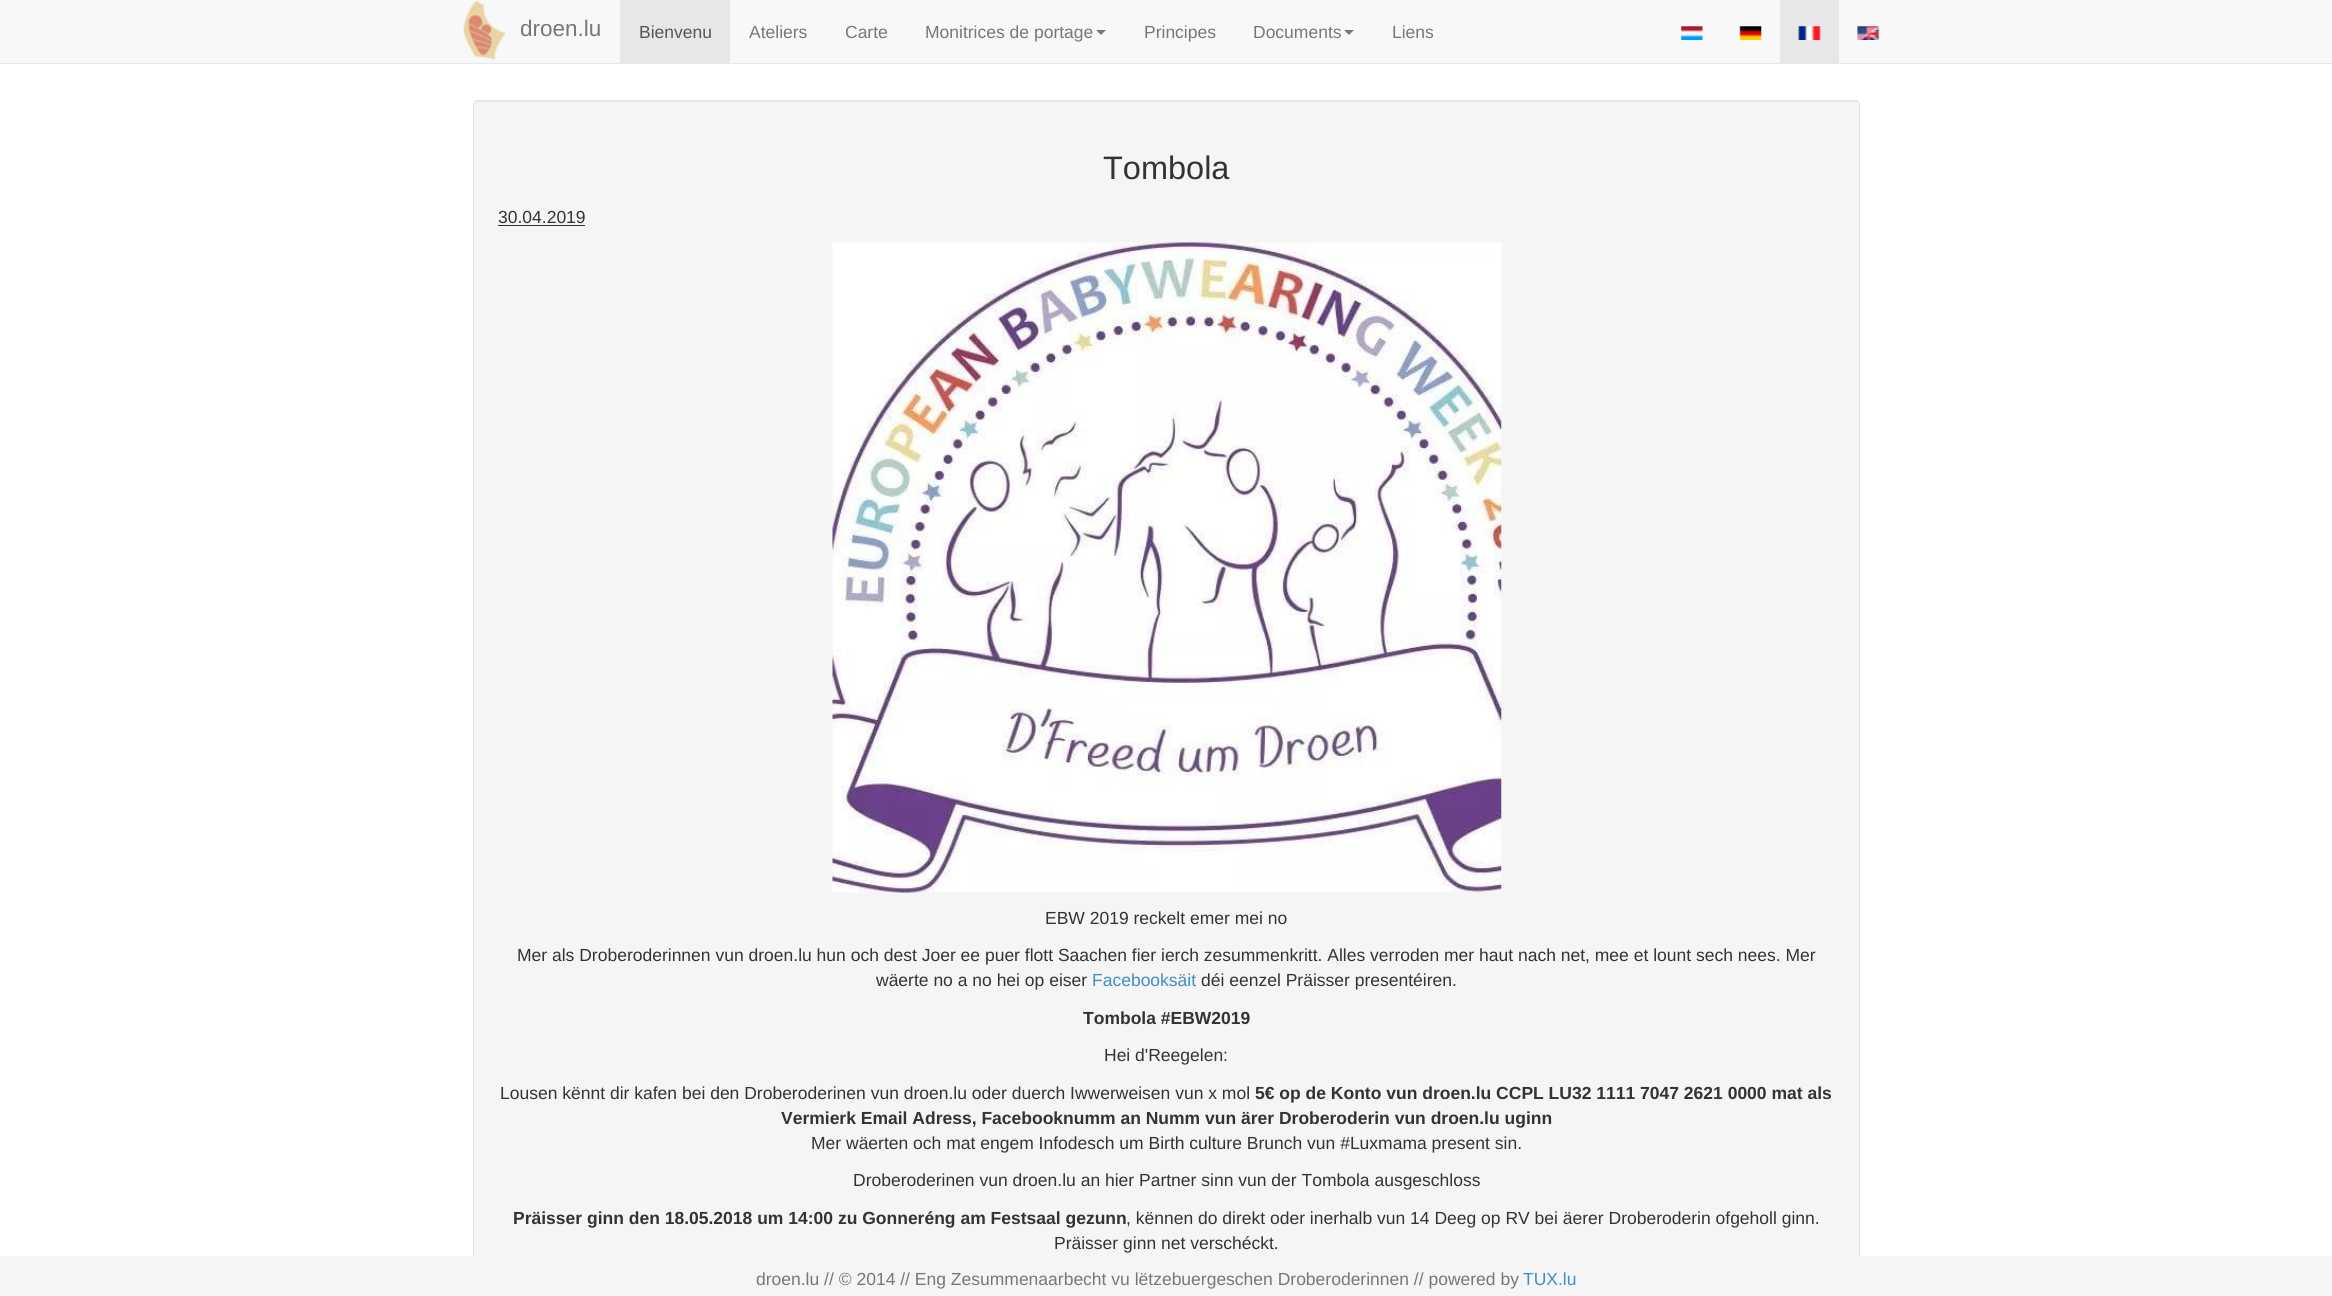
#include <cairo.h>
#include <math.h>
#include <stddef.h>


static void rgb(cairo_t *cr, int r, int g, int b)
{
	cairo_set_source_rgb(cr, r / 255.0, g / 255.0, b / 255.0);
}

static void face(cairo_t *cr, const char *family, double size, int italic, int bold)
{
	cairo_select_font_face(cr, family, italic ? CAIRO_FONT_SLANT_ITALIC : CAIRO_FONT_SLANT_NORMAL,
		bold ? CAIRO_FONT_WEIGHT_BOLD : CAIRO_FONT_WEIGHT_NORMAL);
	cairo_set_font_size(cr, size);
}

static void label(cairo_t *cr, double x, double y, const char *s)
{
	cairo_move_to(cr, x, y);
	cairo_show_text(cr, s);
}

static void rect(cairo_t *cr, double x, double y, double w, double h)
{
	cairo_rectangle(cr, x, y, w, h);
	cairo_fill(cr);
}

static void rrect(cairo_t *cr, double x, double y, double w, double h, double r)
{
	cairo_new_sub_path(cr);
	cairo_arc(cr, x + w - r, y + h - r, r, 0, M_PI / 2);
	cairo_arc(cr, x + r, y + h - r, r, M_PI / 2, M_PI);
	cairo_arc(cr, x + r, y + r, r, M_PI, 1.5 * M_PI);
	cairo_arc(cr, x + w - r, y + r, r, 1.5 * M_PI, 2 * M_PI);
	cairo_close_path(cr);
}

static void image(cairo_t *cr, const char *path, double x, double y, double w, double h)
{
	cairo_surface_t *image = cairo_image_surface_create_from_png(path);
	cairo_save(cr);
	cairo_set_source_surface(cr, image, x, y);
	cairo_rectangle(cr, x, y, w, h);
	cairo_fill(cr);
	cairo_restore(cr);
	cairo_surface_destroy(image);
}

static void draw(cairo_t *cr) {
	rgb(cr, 255, 255, 255);
	cairo_paint(cr);
	rgb(cr, 248, 248, 248);
	rect(cr, 0, 0, 2332, 63);
	rgb(cr, 231, 231, 231);
	rect(cr, 0, 63, 2332, 1);
	image(cr, "image0.png", 463, 1, 43, 59);
	face(cr, "Liberation Sans", 22.5, 0, 0);
	rgb(cr, 119, 119, 119);
	label(cr, 520, 36, "droen.lu");
	rgb(cr, 231, 231, 231);
	rect(cr, 620, 0, 110, 63);
	face(cr, "Liberation Sans", 17.5, 0, 0);
	rgb(cr, 85, 85, 85);
	label(cr, 639, 38, "Bienvenu");
	rgb(cr, 119, 119, 119);
	label(cr, 749, 38, "Ateliers");
	label(cr, 845, 38, "Carte");
	label(cr, 925, 38, "Monitrices de portage");
	cairo_new_path(cr);
	cairo_move_to(cr, 1096, 30);
	cairo_line_to(cr, 1106, 30);
	cairo_line_to(cr, 1101, 35);
	cairo_close_path(cr);
	cairo_fill(cr);
	label(cr, 1144, 38, "Principes");
	label(cr, 1253, 38, "Documents");
	cairo_new_path(cr);
	cairo_move_to(cr, 1344, 30);
	cairo_line_to(cr, 1354, 30);
	cairo_line_to(cr, 1349, 35);
	cairo_close_path(cr);
	cairo_fill(cr);
	label(cr, 1392, 38, "Liens");
	image(cr, "image1.png", 1681, 26, 23, 14);
	image(cr, "image2.png", 1739, 26, 23, 14);
	rgb(cr, 231, 231, 231);
	rect(cr, 1780, 0, 59, 63);
	image(cr, "image3.png", 1798, 26, 23, 14);
	image(cr, "image4.png", 1857, 26, 23, 14);
	rgb(cr, 245, 245, 245);
	rrect(cr, 473, 100, 1387, 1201, 5);
	cairo_fill(cr);
	rgb(cr, 233, 233, 233);
	cairo_new_path(cr);
	cairo_move_to(cr, 478, 102);
	cairo_line_to(cr, 1855, 102);
	cairo_curve_to(cr, 1857, 102, 1859, 104, 1859, 106);
	cairo_line_to(cr, 1859, 105);
	cairo_curve_to(cr, 1859, 103, 1857, 101, 1855, 101);
	cairo_line_to(cr, 478, 101);
	cairo_curve_to(cr, 476, 101, 474, 103, 474, 105);
	cairo_line_to(cr, 474, 106);
	cairo_curve_to(cr, 474, 104, 475, 102, 478, 102);
	cairo_close_path(cr);
	cairo_fill(cr);
	rrect(cr, 473.5, 100.5, 1386, 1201, 4.5);
	rgb(cr, 227, 227, 227);
	cairo_set_line_width(cr, 1);
	cairo_stroke(cr);
	face(cr, "Liberation Sans", 32.5, 0, 0);
	rgb(cr, 51, 51, 51);
	label(cr, 1103, 179, "Tombola");
	face(cr, "Liberation Sans", 17.5, 0, 0);
	label(cr, 498, 223, "30.04.2019");
	rgb(cr, 48, 48, 48);
	rect(cr, 498, 225, 87, 1);
	image(cr, "image5.png", 832, 242, 670, 651);
	rgb(cr, 51, 51, 51);
	label(cr, 1045, 924, "EBW 2019 reckelt emer mei no");
	label(cr, 517, 961, "Mer als Droberoderinnen vun droen.lu hun och dest Joer ee puer flott Saachen fier ierch zesummenkritt. Alles verroden mer haut nach net, mee et lount sech nees. Mer");
	label(cr, 876, 986, "wäerte no a no hei op eiser");
	rgb(cr, 66, 139, 202);
	label(cr, 1092, 986, "Facebooksäit");
	rgb(cr, 51, 51, 51);
	label(cr, 1201, 986, "déi eenzel Präisser presentéiren.");
	face(cr, "Liberation Sans", 17.5, 0, 1);
	label(cr, 1083, 1024, "Tombola #EBW2019");
	face(cr, "Liberation Sans", 17.5, 0, 0);
	label(cr, 1104, 1061, "Hei d'Reegelen:");
	label(cr, 500, 1099, "Lousen kënnt dir kafen bei den Droberoderinen vun droen.lu oder duerch Iwwerweisen vun x mol");
	face(cr, "Liberation Sans", 17.5, 0, 1);
	label(cr, 1255, 1099, "5€ op de Konto vun droen.lu CCPL LU32 1111 7047 2621 0000 mat als");
	label(cr, 781, 1124, "Vermierk Email Adress, Facebooknumm an Numm vun ärer Droberoderin vun droen.lu uginn");
	face(cr, "Liberation Sans", 17.5, 0, 0);
	label(cr, 811, 1149, "Mer wäerten och mat engem Infodesch um Birth culture Brunch vun #Luxmama present sin.");
	label(cr, 853, 1186, "Droberoderinen vun droen.lu an hier Partner sinn vun der Tombola ausgeschloss");
	face(cr, "Liberation Sans", 17.5, 0, 1);
	label(cr, 513, 1224, "Präisser ginn den 18.05.2018 um 14:00 zu Gonneréng am Festsaal gezunn");
	face(cr, "Liberation Sans", 17.5, 0, 0);
	label(cr, 1126, 1224, ", kënnen do direkt oder inerhalb vun 14 Deeg op RV bei äerer Droberoderin ofgeholl ginn.");
	label(cr, 1054, 1249, "Präisser ginn net verschéckt.");
	rgb(cr, 245, 245, 245);
	rect(cr, 0, 1256, 2332, 40);
	rgb(cr, 119, 119, 119);
	label(cr, 756, 1285, "droen.lu // © 2014 // Eng Zesummenaarbecht vu lëtzebuergeschen Droberoderinnen // powered by");
	rgb(cr, 66, 139, 202);
	label(cr, 1523, 1285, "TUX.lu");
}

int main(void) {
	cairo_surface_t *surface = cairo_image_surface_create(CAIRO_FORMAT_RGB24, 2332, 1296);
	cairo_t *cr = cairo_create(surface);
	cairo_font_options_t *options = cairo_font_options_create();
	cairo_font_options_set_hint_metrics(options, CAIRO_HINT_METRICS_OFF);
	cairo_font_options_set_hint_style(options, CAIRO_HINT_STYLE_NONE);
	cairo_set_font_options(cr, options);
	cairo_set_miter_limit(cr, 4);
	draw(cr);
	cairo_surface_write_to_png(surface, "render.png");
	cairo_font_options_destroy(options);
	cairo_destroy(cr);
	cairo_surface_destroy(surface);
	return 0;
}
